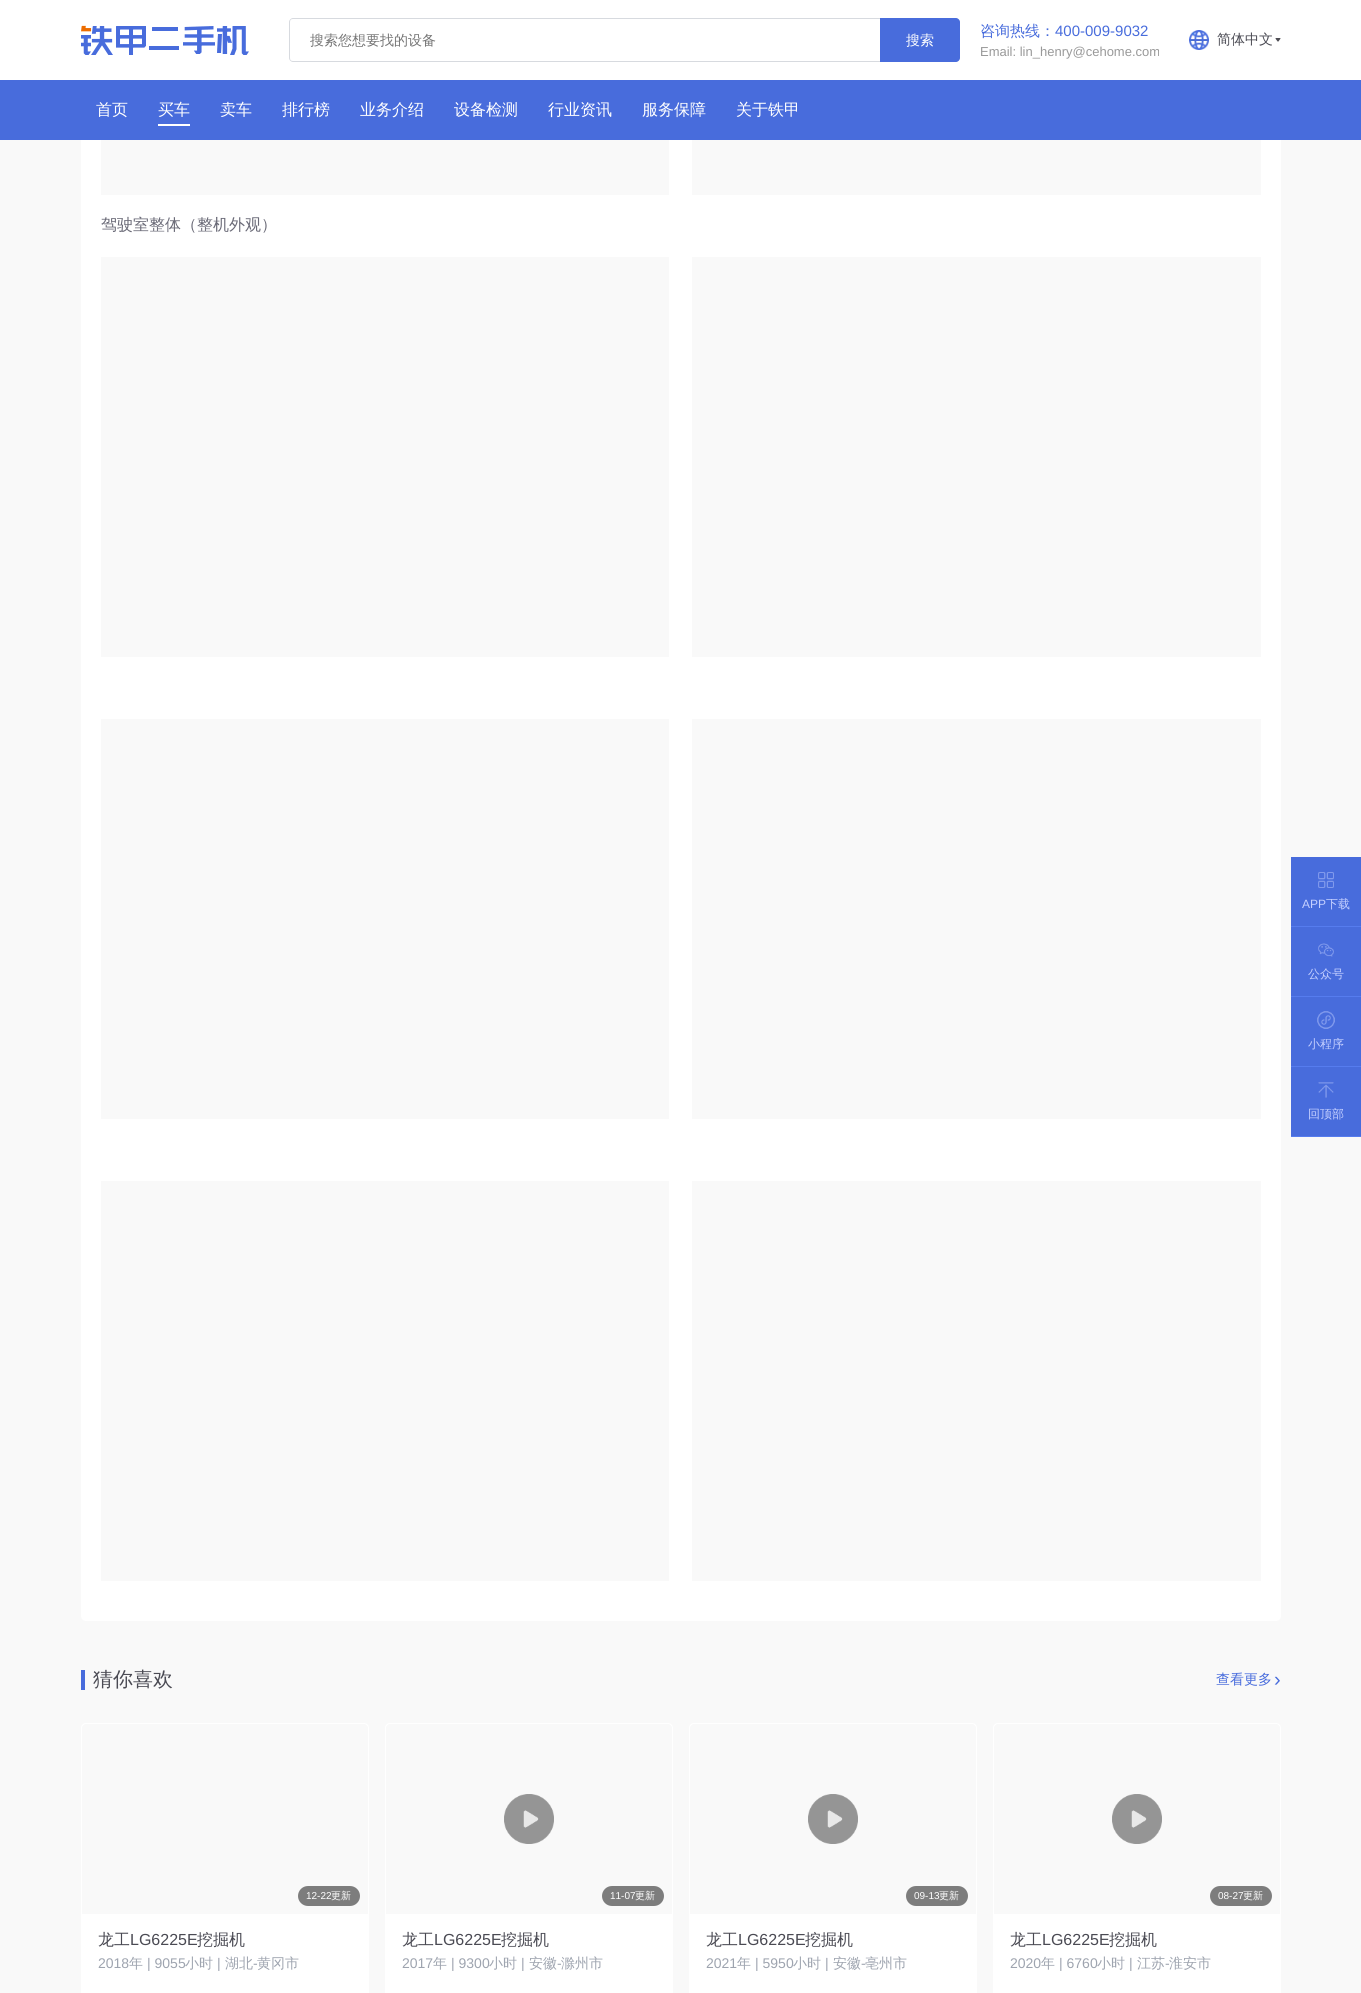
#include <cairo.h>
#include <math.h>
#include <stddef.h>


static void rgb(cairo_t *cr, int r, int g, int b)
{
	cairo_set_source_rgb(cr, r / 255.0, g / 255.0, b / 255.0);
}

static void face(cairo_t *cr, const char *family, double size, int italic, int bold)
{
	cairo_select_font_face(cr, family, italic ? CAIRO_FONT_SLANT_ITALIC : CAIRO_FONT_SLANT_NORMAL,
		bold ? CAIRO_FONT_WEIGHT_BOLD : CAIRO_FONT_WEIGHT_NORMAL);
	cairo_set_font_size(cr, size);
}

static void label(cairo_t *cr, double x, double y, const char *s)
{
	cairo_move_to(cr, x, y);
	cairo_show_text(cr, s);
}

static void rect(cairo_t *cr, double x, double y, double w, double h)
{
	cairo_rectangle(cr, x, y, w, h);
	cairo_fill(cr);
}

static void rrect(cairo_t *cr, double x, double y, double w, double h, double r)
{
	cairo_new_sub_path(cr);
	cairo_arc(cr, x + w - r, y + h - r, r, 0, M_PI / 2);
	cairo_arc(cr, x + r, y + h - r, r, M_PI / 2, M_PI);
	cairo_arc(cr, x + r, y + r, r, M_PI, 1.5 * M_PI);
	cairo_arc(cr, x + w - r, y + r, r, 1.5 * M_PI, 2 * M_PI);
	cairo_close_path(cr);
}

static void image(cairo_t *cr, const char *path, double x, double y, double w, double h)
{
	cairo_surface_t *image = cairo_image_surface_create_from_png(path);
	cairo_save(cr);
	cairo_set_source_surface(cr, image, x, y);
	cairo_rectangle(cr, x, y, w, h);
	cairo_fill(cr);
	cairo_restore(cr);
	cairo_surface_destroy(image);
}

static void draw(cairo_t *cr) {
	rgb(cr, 249, 249, 249);
	cairo_paint(cr);
	rgb(cr, 255, 255, 255);
	rrect(cr, 81, -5, 1200, 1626, 5);
	cairo_fill(cr);
	rect(cr, 0, 0, 1361, 80);
	image(cr, "image0.png", 81, 25, 168, 30);
	rgb(cr, 215, 218, 223);
	cairo_set_fill_rule(cr, CAIRO_FILL_RULE_EVEN_ODD);
	cairo_new_path(cr);
	cairo_move_to(cr, 293, 18);
	cairo_line_to(cr, 880, 18);
	cairo_line_to(cr, 880, 62);
	cairo_line_to(cr, 293, 62);
	cairo_curve_to(cr, 291, 62, 289, 60, 289, 58);
	cairo_line_to(cr, 289, 22);
	cairo_curve_to(cr, 289, 20, 291, 18, 293, 18);
	cairo_close_path(cr);
	cairo_move_to(cr, 293, 19);
	cairo_line_to(cr, 880, 19);
	cairo_line_to(cr, 880, 61);
	cairo_line_to(cr, 293, 61);
	cairo_curve_to(cr, 291, 61, 290, 60, 290, 58);
	cairo_line_to(cr, 290, 22);
	cairo_curve_to(cr, 290, 20, 291, 19, 293, 19);
	cairo_close_path(cr);
	cairo_fill(cr);
	face(cr, "WenQuanYi Zen Hei Medium", 14, 0, 0);
	rgb(cr, 117, 117, 117);
	label(cr, 310, 45, "搜索您想要找的设备");
	rgb(cr, 72, 108, 220);
	cairo_new_path(cr);
	cairo_move_to(cr, 880, 18);
	cairo_line_to(cr, 956, 18);
	cairo_curve_to(cr, 958, 18, 960, 20, 960, 22);
	cairo_line_to(cr, 960, 58);
	cairo_curve_to(cr, 960, 60, 958, 62, 956, 62);
	cairo_line_to(cr, 880, 62);
	cairo_close_path(cr);
	cairo_fill(cr);
	rgb(cr, 255, 255, 255);
	label(cr, 906, 45, "搜索");
	face(cr, "WenQuanYi Zen Hei Medium", 15, 0, 0);
	rgb(cr, 72, 108, 220);
	label(cr, 980, 36, "咨询热线：");
	face(cr, "Liberation Sans", 15, 0, 0);
	label(cr, 1055, 36, "400-009-9032");
	face(cr, "Liberation Sans", 13, 0, 0);
	rgb(cr, 153, 153, 153);
	label(cr, 980, 56, "Email: lin_henry@cehome.com");
	image(cr, "image1.png", 1189, 30, 20, 20);
	face(cr, "WenQuanYi Zen Hei Medium", 14, 0, 0);
	rgb(cr, 74, 74, 83);
	label(cr, 1217, 44, "简体中文");
	image(cr, "image2.png", 1275, 38, 6, 4);
	rgb(cr, 72, 108, 220);
	rect(cr, 0, 80, 1361, 60);
	face(cr, "WenQuanYi Zen Hei Medium", 16, 0, 0);
	rgb(cr, 255, 255, 255);
	label(cr, 96, 115, "首页");
	label(cr, 158, 115, "买车");
	rect(cr, 158, 124, 32, 2);
	label(cr, 220, 115, "卖车");
	label(cr, 282, 115, "排行榜");
	label(cr, 360, 115, "业务介绍");
	label(cr, 454, 115, "设备检测");
	label(cr, 548, 115, "行业资讯");
	label(cr, 642, 115, "服务保障");
	label(cr, 736, 115, "关于铁甲");
	rgb(cr, 249, 249, 249);
	rect(cr, 101, 140, 568, 55);
	rect(cr, 692, 140, 569, 55);
	rgb(cr, 106, 106, 119);
	label(cr, 101, 230, "驾驶室整体（整机外观）");
	rgb(cr, 249, 249, 249);
	rect(cr, 101, 257, 568, 400);
	rect(cr, 692, 257, 569, 400);
	rect(cr, 101, 719, 568, 400);
	rect(cr, 692, 719, 569, 400);
	rect(cr, 101, 1181, 568, 400);
	rect(cr, 692, 1181, 569, 400);
	rgb(cr, 72, 108, 220);
	rect(cr, 81, 1670, 4, 20);
	face(cr, "WenQuanYi Zen Hei Medium", 20, 0, 0);
	rgb(cr, 74, 74, 83);
	label(cr, 93, 1686, "猜你喜欢");
	face(cr, "WenQuanYi Zen Hei Medium", 14, 0, 0);
	rgb(cr, 72, 108, 220);
	label(cr, 1216, 1684, "查看更多");
	face(cr, "Liberation Sans", 20, 0, 0);
	label(cr, 1274, 1686, "›");
	rgb(cr, 255, 255, 255);
	rrect(cr, 81, 1723, 288, 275, 5);
	cairo_fill(cr);
	rgb(cr, 249, 249, 249);
	cairo_new_path(cr);
	cairo_move_to(cr, 86, 1724);
	cairo_line_to(cr, 364, 1724);
	cairo_curve_to(cr, 366, 1724, 368, 1726, 368, 1728);
	cairo_line_to(cr, 368, 1914);
	cairo_line_to(cr, 82, 1914);
	cairo_line_to(cr, 82, 1728);
	cairo_curve_to(cr, 82, 1726, 84, 1724, 86, 1724);
	cairo_close_path(cr);
	cairo_fill(cr);
	rgb(cr, 125, 125, 125);
	rrect(cr, 298, 1886, 62, 20, 10);
	cairo_fill(cr);
	face(cr, "Liberation Sans", 10, 0, 0);
	rgb(cr, 255, 255, 255);
	label(cr, 306, 1899, "12-22");
	face(cr, "WenQuanYi Zen Hei Medium", 10, 0, 0);
	label(cr, 331, 1899, "更新");
	face(cr, "WenQuanYi Zen Hei Medium", 16, 0, 0);
	rgb(cr, 74, 74, 83);
	label(cr, 98, 1945, "龙工");
	face(cr, "Liberation Sans", 16, 0, 0);
	label(cr, 130, 1945, "LG6225E");
	face(cr, "WenQuanYi Zen Hei Medium", 16, 0, 0);
	label(cr, 197, 1945, "挖掘机");
	face(cr, "Liberation Sans", 14, 0, 0);
	rgb(cr, 158, 164, 175);
	label(cr, 98, 1968, "2018");
	face(cr, "WenQuanYi Zen Hei Medium", 14, 0, 0);
	label(cr, 129, 1968, "年");
	face(cr, "Liberation Sans", 14, 0, 0);
	label(cr, 147, 1968, "| 9055");
	face(cr, "WenQuanYi Zen Hei Medium", 14, 0, 0);
	label(cr, 185, 1968, "小时");
	face(cr, "Liberation Sans", 14, 0, 0);
	label(cr, 217, 1968, "|");
	face(cr, "WenQuanYi Zen Hei Medium", 14, 0, 0);
	label(cr, 225, 1968, "湖北");
	face(cr, "Liberation Sans", 14, 0, 0);
	label(cr, 253, 1968, "-");
	face(cr, "WenQuanYi Zen Hei Medium", 14, 0, 0);
	label(cr, 257, 1968, "黄冈市");
	rgb(cr, 255, 255, 255);
	rrect(cr, 385, 1723, 288, 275, 5);
	cairo_fill(cr);
	rgb(cr, 249, 249, 249);
	cairo_new_path(cr);
	cairo_move_to(cr, 390, 1724);
	cairo_line_to(cr, 668, 1724);
	cairo_curve_to(cr, 670, 1724, 672, 1726, 672, 1728);
	cairo_line_to(cr, 672, 1914);
	cairo_line_to(cr, 386, 1914);
	cairo_line_to(cr, 386, 1728);
	cairo_curve_to(cr, 386, 1726, 388, 1724, 390, 1724);
	cairo_close_path(cr);
	cairo_fill(cr);
	image(cr, "image3.png", 504, 1794, 50, 50);
	rgb(cr, 125, 125, 125);
	rrect(cr, 602, 1886, 62, 20, 10);
	cairo_fill(cr);
	face(cr, "Liberation Sans", 10, 0, 0);
	rgb(cr, 255, 255, 255);
	label(cr, 610, 1899, "11-07");
	face(cr, "WenQuanYi Zen Hei Medium", 10, 0, 0);
	label(cr, 635, 1899, "更新");
	face(cr, "WenQuanYi Zen Hei Medium", 16, 0, 0);
	rgb(cr, 74, 74, 83);
	label(cr, 402, 1945, "龙工");
	face(cr, "Liberation Sans", 16, 0, 0);
	label(cr, 434, 1945, "LG6225E");
	face(cr, "WenQuanYi Zen Hei Medium", 16, 0, 0);
	label(cr, 501, 1945, "挖掘机");
	face(cr, "Liberation Sans", 14, 0, 0);
	rgb(cr, 158, 164, 175);
	label(cr, 402, 1968, "2017");
	face(cr, "WenQuanYi Zen Hei Medium", 14, 0, 0);
	label(cr, 433, 1968, "年");
	face(cr, "Liberation Sans", 14, 0, 0);
	label(cr, 451, 1968, "| 9300");
	face(cr, "WenQuanYi Zen Hei Medium", 14, 0, 0);
	label(cr, 489, 1968, "小时");
	face(cr, "Liberation Sans", 14, 0, 0);
	label(cr, 521, 1968, "|");
	face(cr, "WenQuanYi Zen Hei Medium", 14, 0, 0);
	label(cr, 529, 1968, "安徽");
	face(cr, "Liberation Sans", 14, 0, 0);
	label(cr, 557, 1968, "-");
	face(cr, "WenQuanYi Zen Hei Medium", 14, 0, 0);
	label(cr, 561, 1968, "滁州市");
	rgb(cr, 255, 255, 255);
	rrect(cr, 689, 1723, 288, 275, 5);
	cairo_fill(cr);
	rgb(cr, 249, 249, 249);
	cairo_new_path(cr);
	cairo_move_to(cr, 694, 1724);
	cairo_line_to(cr, 972, 1724);
	cairo_curve_to(cr, 974, 1724, 976, 1726, 976, 1728);
	cairo_line_to(cr, 976, 1914);
	cairo_line_to(cr, 690, 1914);
	cairo_line_to(cr, 690, 1728);
	cairo_curve_to(cr, 690, 1726, 692, 1724, 694, 1724);
	cairo_close_path(cr);
	cairo_fill(cr);
	image(cr, "image3.png", 808, 1794, 50, 50);
	rgb(cr, 125, 125, 125);
	rrect(cr, 906, 1886, 62, 20, 10);
	cairo_fill(cr);
	face(cr, "Liberation Sans", 10, 0, 0);
	rgb(cr, 255, 255, 255);
	label(cr, 914, 1899, "09-13");
	face(cr, "WenQuanYi Zen Hei Medium", 10, 0, 0);
	label(cr, 939, 1899, "更新");
	face(cr, "WenQuanYi Zen Hei Medium", 16, 0, 0);
	rgb(cr, 74, 74, 83);
	label(cr, 706, 1945, "龙工");
	face(cr, "Liberation Sans", 16, 0, 0);
	label(cr, 738, 1945, "LG6225E");
	face(cr, "WenQuanYi Zen Hei Medium", 16, 0, 0);
	label(cr, 805, 1945, "挖掘机");
	face(cr, "Liberation Sans", 14, 0, 0);
	rgb(cr, 158, 164, 175);
	label(cr, 706, 1968, "2021");
	face(cr, "WenQuanYi Zen Hei Medium", 14, 0, 0);
	label(cr, 737, 1968, "年");
	face(cr, "Liberation Sans", 14, 0, 0);
	label(cr, 755, 1968, "| 5950");
	face(cr, "WenQuanYi Zen Hei Medium", 14, 0, 0);
	label(cr, 793, 1968, "小时");
	face(cr, "Liberation Sans", 14, 0, 0);
	label(cr, 825, 1968, "|");
	face(cr, "WenQuanYi Zen Hei Medium", 14, 0, 0);
	label(cr, 833, 1968, "安徽");
	face(cr, "Liberation Sans", 14, 0, 0);
	label(cr, 861, 1968, "-");
	face(cr, "WenQuanYi Zen Hei Medium", 14, 0, 0);
	label(cr, 865, 1968, "亳州市");
	rgb(cr, 255, 255, 255);
	rrect(cr, 993, 1723, 288, 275, 5);
	cairo_fill(cr);
	rgb(cr, 249, 249, 249);
	cairo_new_path(cr);
	cairo_move_to(cr, 998, 1724);
	cairo_line_to(cr, 1276, 1724);
	cairo_curve_to(cr, 1278, 1724, 1280, 1726, 1280, 1728);
	cairo_line_to(cr, 1280, 1914);
	cairo_line_to(cr, 994, 1914);
	cairo_line_to(cr, 994, 1728);
	cairo_curve_to(cr, 994, 1726, 996, 1724, 998, 1724);
	cairo_close_path(cr);
	cairo_fill(cr);
	image(cr, "image4.png", 1112, 1794, 50, 50);
	rgb(cr, 125, 125, 125);
	rrect(cr, 1210, 1886, 62, 20, 10);
	cairo_fill(cr);
	face(cr, "Liberation Sans", 10, 0, 0);
	rgb(cr, 255, 255, 255);
	label(cr, 1218, 1899, "08-27");
	face(cr, "WenQuanYi Zen Hei Medium", 10, 0, 0);
	label(cr, 1243, 1899, "更新");
	face(cr, "WenQuanYi Zen Hei Medium", 16, 0, 0);
	rgb(cr, 74, 74, 83);
	label(cr, 1010, 1945, "龙工");
	face(cr, "Liberation Sans", 16, 0, 0);
	label(cr, 1042, 1945, "LG6225E");
	face(cr, "WenQuanYi Zen Hei Medium", 16, 0, 0);
	label(cr, 1109, 1945, "挖掘机");
	face(cr, "Liberation Sans", 14, 0, 0);
	rgb(cr, 158, 164, 175);
	label(cr, 1010, 1968, "2020");
	face(cr, "WenQuanYi Zen Hei Medium", 14, 0, 0);
	label(cr, 1041, 1968, "年");
	face(cr, "Liberation Sans", 14, 0, 0);
	label(cr, 1059, 1968, "| 6760");
	face(cr, "WenQuanYi Zen Hei Medium", 14, 0, 0);
	label(cr, 1097, 1968, "小时");
	face(cr, "Liberation Sans", 14, 0, 0);
	label(cr, 1129, 1968, "|");
	face(cr, "WenQuanYi Zen Hei Medium", 14, 0, 0);
	label(cr, 1137, 1968, "江苏");
	face(cr, "Liberation Sans", 14, 0, 0);
	label(cr, 1165, 1968, "-");
	face(cr, "WenQuanYi Zen Hei Medium", 14, 0, 0);
	label(cr, 1169, 1968, "淮安市");
	rgb(cr, 72, 108, 220);
	rect(cr, 1291, 857, 70, 279);
	rgb(cr, 86, 124, 238);
	rect(cr, 1291, 926, 70, 1);
	image(cr, "image5.png", 1318, 872, 16, 16);
	face(cr, "Liberation Sans", 12, 0, 0);
	rgb(cr, 197, 208, 255);
	label(cr, 1302, 908, "APP");
	face(cr, "WenQuanYi Zen Hei Medium", 12, 0, 0);
	label(cr, 1326, 908, "下载");
	rgb(cr, 86, 124, 238);
	rect(cr, 1291, 996, 70, 1);
	image(cr, "image6.png", 1318, 943, 16, 14);
	rgb(cr, 197, 208, 255);
	label(cr, 1308, 978, "公众号");
	rgb(cr, 86, 124, 238);
	rect(cr, 1291, 1066, 70, 1);
	image(cr, "image7.png", 1317, 1011, 18, 18);
	rgb(cr, 197, 208, 255);
	label(cr, 1308, 1048, "小程序");
	rgb(cr, 86, 124, 238);
	rect(cr, 1291, 1136, 70, 1);
	image(cr, "image8.png", 1318, 1082, 16, 16);
	rgb(cr, 197, 208, 255);
	label(cr, 1308, 1118, "回顶部");
}

int main(void) {
	cairo_surface_t *surface = cairo_image_surface_create(CAIRO_FORMAT_RGB24, 1361, 1993);
	cairo_t *cr = cairo_create(surface);
	cairo_font_options_t *options = cairo_font_options_create();
	cairo_font_options_set_hint_metrics(options, CAIRO_HINT_METRICS_OFF);
	cairo_font_options_set_hint_style(options, CAIRO_HINT_STYLE_NONE);
	cairo_set_font_options(cr, options);
	cairo_set_miter_limit(cr, 4);
	draw(cr);
	cairo_surface_write_to_png(surface, "render.png");
	cairo_font_options_destroy(options);
	cairo_destroy(cr);
	cairo_surface_destroy(surface);
	return 0;
}
